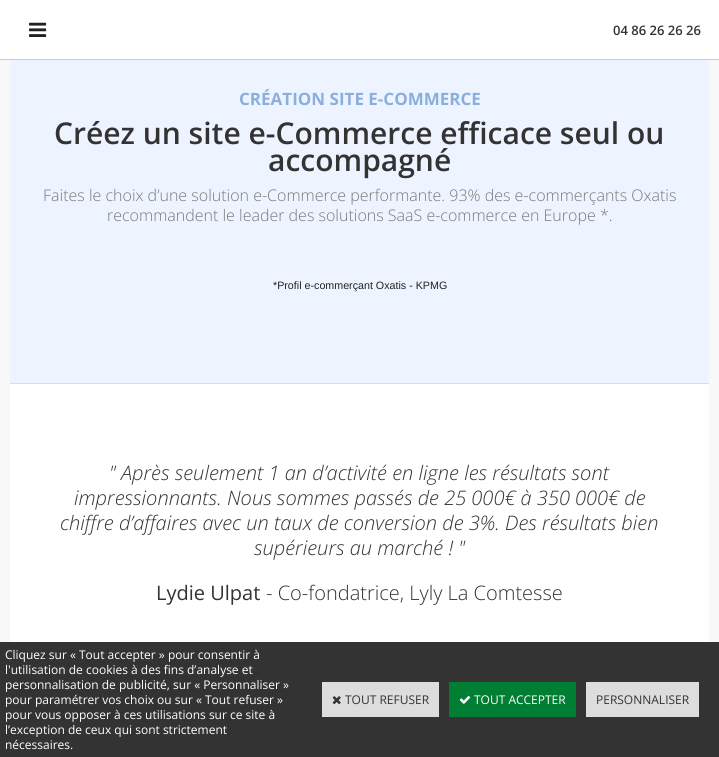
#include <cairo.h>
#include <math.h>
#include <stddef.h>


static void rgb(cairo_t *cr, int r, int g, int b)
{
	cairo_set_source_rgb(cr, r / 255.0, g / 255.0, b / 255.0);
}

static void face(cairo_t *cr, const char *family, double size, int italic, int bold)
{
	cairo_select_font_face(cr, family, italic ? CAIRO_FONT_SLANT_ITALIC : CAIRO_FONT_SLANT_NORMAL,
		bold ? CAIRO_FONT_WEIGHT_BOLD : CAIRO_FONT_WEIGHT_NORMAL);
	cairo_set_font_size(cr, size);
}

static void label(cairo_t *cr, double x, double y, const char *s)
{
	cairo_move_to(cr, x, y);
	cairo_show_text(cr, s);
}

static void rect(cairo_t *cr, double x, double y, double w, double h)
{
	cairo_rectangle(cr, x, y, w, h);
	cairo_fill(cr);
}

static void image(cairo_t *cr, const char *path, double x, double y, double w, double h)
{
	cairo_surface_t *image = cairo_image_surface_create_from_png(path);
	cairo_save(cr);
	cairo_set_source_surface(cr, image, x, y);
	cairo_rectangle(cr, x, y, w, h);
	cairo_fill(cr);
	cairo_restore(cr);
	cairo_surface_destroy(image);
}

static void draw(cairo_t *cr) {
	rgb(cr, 248, 248, 248);
	cairo_paint(cr);
	rgb(cr, 255, 255, 255);
	rect(cr, 0, 0, 719, 59);
	rgb(cr, 204, 204, 204);
	rect(cr, 0, 59, 719, 1);
	image(cr, "image0.png", 29, 22, 18, 15);
	face(cr, "Open Sans SemiBold", 13, 0, 0);
	rgb(cr, 51, 51, 51);
	label(cr, 613, 35, "04 86 26 26 26");
	rgb(cr, 255, 255, 255);
	rect(cr, 10, 384, 699, 258);
	rgb(cr, 237, 244, 255);
	rect(cr, 10, 60, 699, 323);
	face(cr, "Open Sans", 17, 0, 1);
	rgb(cr, 138, 175, 221);
	label(cr, 239, 105, "CRÉATION SITE E-COMMERCE");
	face(cr, "Open Sans SemiBold", 30, 0, 0);
	rgb(cr, 51, 51, 51);
	label(cr, 54, 144, "Créez un site e-Commerce efficace seul ou");
	label(cr, 268, 171, "accompagné");
	face(cr, "Open Sans Light", 16, 0, 0);
	rgb(cr, 119, 119, 119);
	label(cr, 43, 201, "Faites le choix d’une solution e-Commerce performante. 93% des e-commerçants Oxatis");
	label(cr, 107, 221, "recommandent le leader des solutions SaaS e-commerce en Europe *.");
	face(cr, "Liberation Sans", 10.7, 0, 0);
	rgb(cr, 33, 33, 33);
	label(cr, 273, 289, "*Profil e-commerçant Oxatis - KPMG");
	rgb(cr, 221, 221, 221);
	rect(cr, 10, 383, 699, 1);
	face(cr, "Open Sans Light", 20, 1, 0);
	rgb(cr, 51, 51, 51);
	label(cr, 109, 480, "\" Après seulement 1 an d’activité en ligne les résultats sont");
	label(cr, 74, 505, "impressionnants. Nous sommes passés de 25 000€ à 350 000€ de");
	label(cr, 60, 530, "chiffre d’affaires avec un taux de conversion de 3%. Des résultats bien");
	label(cr, 254, 555, "supérieurs au marché ! \"");
	face(cr, "Open Sans", 20, 0, 0);
	label(cr, 156, 600, "Lydie Ulpat");
	face(cr, "Open Sans Light", 20, 0, 0);
	label(cr, 266, 600, "- Co-fondatrice, Lyly La Comtesse");
	rect(cr, 0, 642, 719, 115);
	face(cr, "Open Sans", 12, 0, 0);
	rgb(cr, 255, 255, 255);
	label(cr, 5, 659, "Cliquez sur « Tout accepter » pour consentir à");
	label(cr, 5, 674, "l'utilisation de cookies à des fins d’analyse et");
	label(cr, 5, 689, "personnalisation de publicité, sur « Personnaliser »");
	label(cr, 5, 704, "pour paramétrer vos choix ou sur « Tout refuser »");
	label(cr, 5, 719, "pour vous opposer à ces utilisations sur ce site à");
	label(cr, 5, 734, "l’exception de ceux qui sont strictement");
	label(cr, 5, 749, "nécessaires.");
	rgb(cr, 221, 221, 221);
	rect(cr, 322, 682, 117, 35);
	image(cr, "image1.png", 332, 696, 9, 9);
	rgb(cr, 51, 51, 51);
	label(cr, 345, 704, "TOUT REFUSER");
	rgb(cr, 0, 126, 51);
	rect(cr, 449, 682, 127, 35);
	image(cr, "image2.png", 459, 696, 12, 8);
	rgb(cr, 255, 255, 255);
	label(cr, 474, 704, "TOUT ACCEPTER");
	rgb(cr, 221, 221, 221);
	rect(cr, 586, 682, 113, 35);
	rgb(cr, 51, 51, 51);
	label(cr, 596, 704, "PERSONNALISER");
}

int main(void) {
	cairo_surface_t *surface = cairo_image_surface_create(CAIRO_FORMAT_RGB24, 719, 757);
	cairo_t *cr = cairo_create(surface);
	cairo_font_options_t *options = cairo_font_options_create();
	cairo_font_options_set_hint_metrics(options, CAIRO_HINT_METRICS_OFF);
	cairo_font_options_set_hint_style(options, CAIRO_HINT_STYLE_NONE);
	cairo_set_font_options(cr, options);
	cairo_set_miter_limit(cr, 4);
	draw(cr);
	cairo_surface_write_to_png(surface, "render.png");
	cairo_font_options_destroy(options);
	cairo_destroy(cr);
	cairo_surface_destroy(surface);
	return 0;
}
